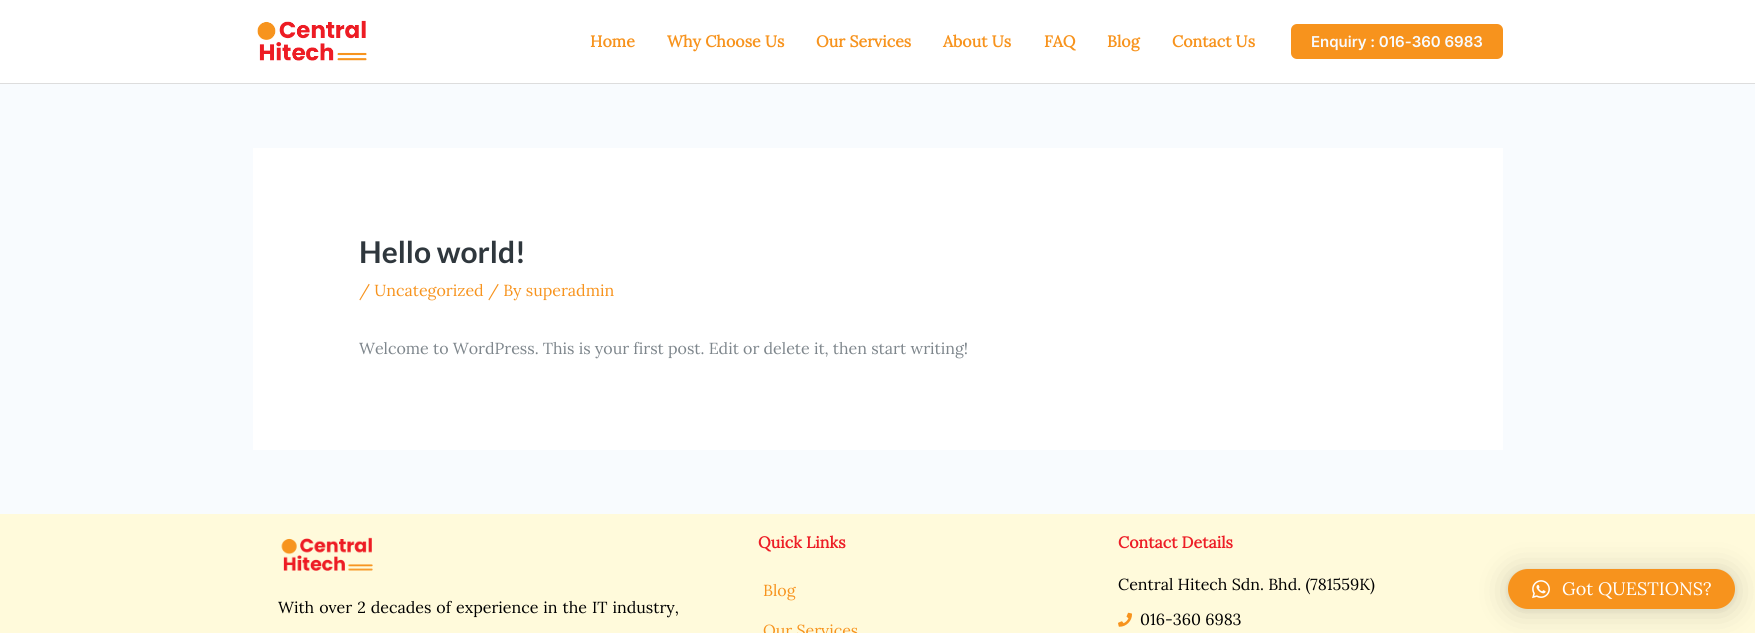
#include <cairo.h>
#include <math.h>
#include <stddef.h>


static void rgb(cairo_t *cr, int r, int g, int b)
{
	cairo_set_source_rgb(cr, r / 255.0, g / 255.0, b / 255.0);
}

static void face(cairo_t *cr, const char *family, double size, int italic, int bold)
{
	cairo_select_font_face(cr, family, italic ? CAIRO_FONT_SLANT_ITALIC : CAIRO_FONT_SLANT_NORMAL,
		bold ? CAIRO_FONT_WEIGHT_BOLD : CAIRO_FONT_WEIGHT_NORMAL);
	cairo_set_font_size(cr, size);
}

static void label(cairo_t *cr, double x, double y, const char *s)
{
	cairo_move_to(cr, x, y);
	cairo_show_text(cr, s);
}

static void tracked(cairo_t *cr, double x, double y, const char *s, double letter, double word)
{
	cairo_move_to(cr, x, y);
	while (*s) {
		char ch[5] = {0};
		int n = 0;
		do ch[n++] = *s++; while ((*s & 0xC0) == 0x80);
		cairo_show_text(cr, ch);
		cairo_rel_move_to(cr, letter + word * (*ch == ' '), 0);
	}
}

static void rect(cairo_t *cr, double x, double y, double w, double h)
{
	cairo_rectangle(cr, x, y, w, h);
	cairo_fill(cr);
}

static void rrect(cairo_t *cr, double x, double y, double w, double h, double r)
{
	cairo_new_sub_path(cr);
	cairo_arc(cr, x + w - r, y + h - r, r, 0, M_PI / 2);
	cairo_arc(cr, x + r, y + h - r, r, M_PI / 2, M_PI);
	cairo_arc(cr, x + r, y + r, r, M_PI, 1.5 * M_PI);
	cairo_arc(cr, x + w - r, y + r, r, 1.5 * M_PI, 2 * M_PI);
	cairo_close_path(cr);
}

static void soft_shadow(cairo_t *cr, double x, double y, double w, double h, double r, double blur, double alpha)
{
	cairo_push_group_with_content(cr, CAIRO_CONTENT_ALPHA);
	cairo_set_operator(cr, CAIRO_OPERATOR_SOURCE);
	for (int i = 15; i >= -15 && fmin(w, h) + blur * i / 3 > 0; i -= 2) {
		double e = blur * i / 6;
		cairo_set_source_rgba(cr, 0, 0, 0, alpha * erfc((i - 1) / 8.5) / 2);
		rrect(cr, x - e, y - e, w + 2 * e, h + 2 * e, fmax(0, fmin(r + e + blur * .6, fmin(w, h) / 2 + e)));
		cairo_fill(cr);
	}
	cairo_pattern_t *soft = cairo_pop_group(cr);
	cairo_mask(cr, soft);
	cairo_pattern_destroy(soft);
}

static void image(cairo_t *cr, const char *path, double x, double y, double w, double h)
{
	cairo_surface_t *image = cairo_image_surface_create_from_png(path);
	cairo_save(cr);
	cairo_set_source_surface(cr, image, x, y);
	cairo_rectangle(cr, x, y, w, h);
	cairo_fill(cr);
	cairo_restore(cr);
	cairo_surface_destroy(image);
}

static void draw(cairo_t *cr) {
	rgb(cr, 248, 251, 254);
	cairo_paint(cr);
	rgb(cr, 255, 255, 255);
	rect(cr, 0, 0, 1755, 83);
	rgb(cr, 221, 221, 221);
	rect(cr, 0, 83, 1755, 1);
	image(cr, "image0.png", 257, 20, 110, 41);
	face(cr, "Lora", 16, 0, 1);
	rgb(cr, 247, 147, 29);
	label(cr, 590, 47, "Home");
	label(cr, 667, 47, "Why Choose Us");
	label(cr, 816, 47, "Our Services");
	label(cr, 943, 47, "About Us");
	label(cr, 1044, 47, "FAQ");
	label(cr, 1107, 47, "Blog");
	label(cr, 1172, 47, "Contact Us");
	rrect(cr, 1291, 24, 212, 35, 6);
	cairo_fill(cr);
	face(cr, "Inter SemiBold", 15, 0, 0);
	rgb(cr, 248, 251, 254);
	label(cr, 1311, 47, "Enquiry : 016-360 6983");
	rgb(cr, 255, 255, 255);
	rect(cr, 253, 148, 1250, 302);
	face(cr, "Lato", 30, 0, 1);
	rgb(cr, 47, 55, 61);
	label(cr, 359, 263, "Hello world!");
	face(cr, "Lora", 16, 0, 0);
	rgb(cr, 247, 147, 29);
	label(cr, 359, 296, "/ Uncategorized / By superadmin");
	rgb(cr, 126, 134, 140);
	label(cr, 359, 354, "Welcome to WordPress. This is your first post. Edit or delete it, then start writing!");
	rgb(cr, 255, 250, 219);
	rect(cr, 0, 514, 1755, 119);
	image(cr, "image1.png", 281, 537, 92, 34);
	rgb(cr, 0, 0, 0);
	tracked(cr, 278, 613, "With over 2 decades of experience in the IT industry,", 0, 0.75);
	face(cr, "Lora", 16, 0, 1);
	rgb(cr, 237, 29, 38);
	label(cr, 758, 548, "Quick Links");
	face(cr, "Lora", 16, 0, 0);
	rgb(cr, 247, 147, 29);
	label(cr, 763, 596, "Blog");
	label(cr, 763, 636, "Our Services");
	face(cr, "Lora", 16, 0, 1);
	rgb(cr, 237, 29, 38);
	label(cr, 1118, 548, "Contact Details");
	face(cr, "Lora", 16, 0, 0);
	rgb(cr, 0, 0, 0);
	label(cr, 1118, 590, "Central Hitech Sdn. Bhd. (781559K)");
	image(cr, "image2.png", 1118, 612, 14, 15);
	label(cr, 1140, 625, "016-360 6983");
	rgb(cr, 0, 0, 0);
	soft_shadow(cr, 1508, 571, 227, 40, 20, 16, 0.16);
	soft_shadow(cr, 1508, 570, 227, 40, 20, 3, 0.06);
	rgb(cr, 247, 147, 29);
	rrect(cr, 1508, 569, 227, 40, 20);
	cairo_fill(cr);
	image(cr, "image3.png", 1532, 580, 18, 19);
	face(cr, "Lora", 18, 0, 0);
	rgb(cr, 255, 255, 255);
	label(cr, 1562, 595, "Got QUESTIONS?");
}

int main(void) {
	cairo_surface_t *surface = cairo_image_surface_create(CAIRO_FORMAT_RGB24, 1755, 633);
	cairo_t *cr = cairo_create(surface);
	cairo_font_options_t *options = cairo_font_options_create();
	cairo_font_options_set_hint_metrics(options, CAIRO_HINT_METRICS_OFF);
	cairo_font_options_set_hint_style(options, CAIRO_HINT_STYLE_NONE);
	cairo_set_font_options(cr, options);
	cairo_set_miter_limit(cr, 4);
	draw(cr);
	cairo_surface_write_to_png(surface, "render.png");
	cairo_font_options_destroy(options);
	cairo_destroy(cr);
	cairo_surface_destroy(surface);
	return 0;
}
